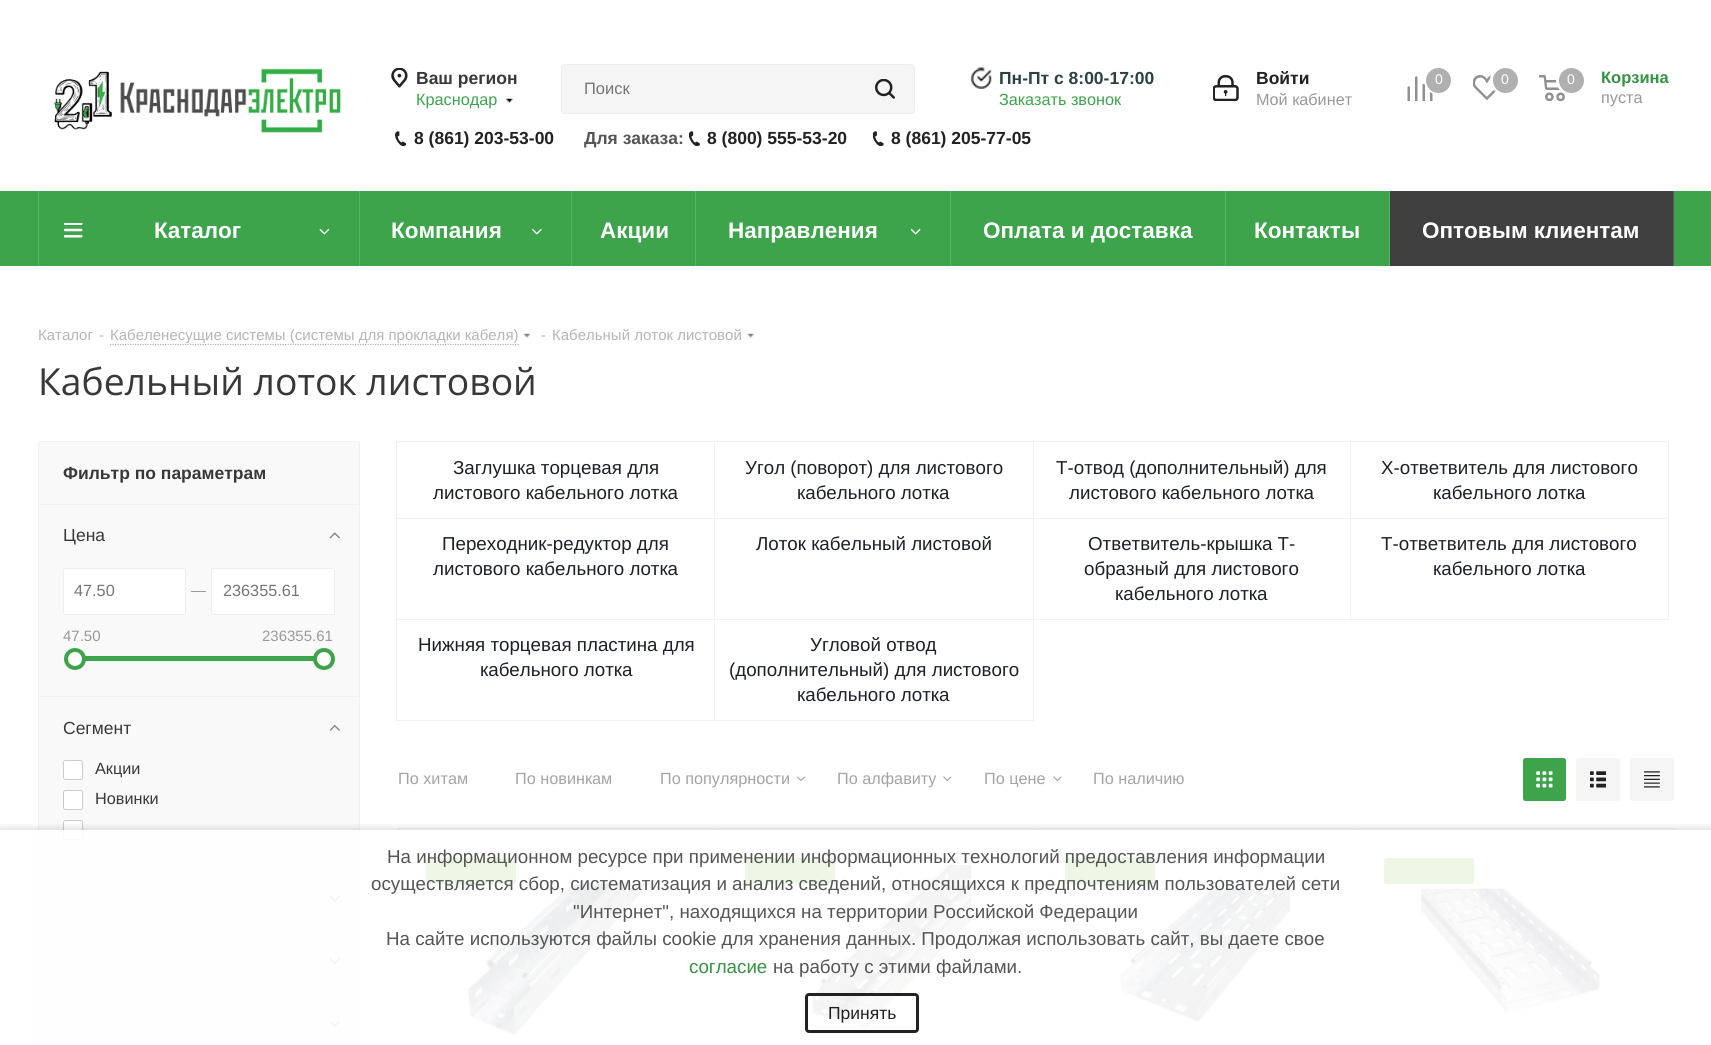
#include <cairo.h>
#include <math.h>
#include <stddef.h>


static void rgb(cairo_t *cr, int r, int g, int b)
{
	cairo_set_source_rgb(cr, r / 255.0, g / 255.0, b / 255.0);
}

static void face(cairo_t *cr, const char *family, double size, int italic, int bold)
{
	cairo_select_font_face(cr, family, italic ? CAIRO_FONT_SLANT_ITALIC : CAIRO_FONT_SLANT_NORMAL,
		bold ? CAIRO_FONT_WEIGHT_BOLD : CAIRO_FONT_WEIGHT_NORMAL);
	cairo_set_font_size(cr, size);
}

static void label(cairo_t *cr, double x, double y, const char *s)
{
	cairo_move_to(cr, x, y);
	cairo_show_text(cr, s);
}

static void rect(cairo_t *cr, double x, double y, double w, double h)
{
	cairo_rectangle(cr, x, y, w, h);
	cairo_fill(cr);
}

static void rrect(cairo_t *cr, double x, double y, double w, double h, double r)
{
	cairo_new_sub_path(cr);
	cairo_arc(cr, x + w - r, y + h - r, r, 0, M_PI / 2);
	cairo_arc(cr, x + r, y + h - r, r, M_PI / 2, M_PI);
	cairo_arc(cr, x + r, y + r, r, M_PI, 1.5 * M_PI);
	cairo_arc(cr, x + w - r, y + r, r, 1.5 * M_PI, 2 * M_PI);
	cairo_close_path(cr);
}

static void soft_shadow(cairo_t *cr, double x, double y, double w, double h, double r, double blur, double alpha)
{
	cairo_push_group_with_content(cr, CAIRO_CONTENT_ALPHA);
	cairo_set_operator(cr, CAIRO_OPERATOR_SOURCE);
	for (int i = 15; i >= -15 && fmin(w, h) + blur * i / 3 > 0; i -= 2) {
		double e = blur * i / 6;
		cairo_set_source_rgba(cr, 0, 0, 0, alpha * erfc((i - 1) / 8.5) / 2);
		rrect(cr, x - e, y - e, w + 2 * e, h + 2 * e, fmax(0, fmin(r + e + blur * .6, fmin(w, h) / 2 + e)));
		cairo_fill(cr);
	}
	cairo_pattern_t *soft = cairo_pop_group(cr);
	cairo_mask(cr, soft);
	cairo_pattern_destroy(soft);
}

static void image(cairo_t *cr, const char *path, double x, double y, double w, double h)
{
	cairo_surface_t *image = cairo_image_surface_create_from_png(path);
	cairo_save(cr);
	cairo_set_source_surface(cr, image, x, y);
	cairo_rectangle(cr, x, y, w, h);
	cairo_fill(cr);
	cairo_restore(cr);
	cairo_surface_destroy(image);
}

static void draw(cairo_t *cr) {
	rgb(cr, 255, 255, 255);
	cairo_paint(cr);
	image(cr, "image0.png", 54, 68, 287, 65);
	image(cr, "image1.png", 391, 68, 17, 20);
	face(cr, "Liberation Sans", 17.5, 0, 1);
	rgb(cr, 56, 56, 56);
	label(cr, 416, 84, "Ваш регион");
	face(cr, "Liberation Sans", 16.25, 0, 0);
	rgb(cr, 61, 164, 76);
	label(cr, 416, 105, "Краснодар");
	image(cr, "image2.png", 506, 98, 7, 5);
	image(cr, "image3.png", 395, 131, 11, 15);
	face(cr, "Liberation Sans", 17.5, 0, 1);
	rgb(cr, 34, 34, 34);
	label(cr, 414, 144, "8 (861) 203-53-00");
	rgb(cr, 85, 85, 85);
	label(cr, 584, 144, "Для заказа:");
	image(cr, "image4.png", 689, 131, 11, 15);
	rgb(cr, 34, 34, 34);
	label(cr, 707, 144, "8 (800) 555-53-20");
	image(cr, "image5.png", 873, 131, 11, 15);
	label(cr, 891, 144, "8 (861) 205-77-05");
	image(cr, "image6.png", 971, 67, 21, 22);
	rgb(cr, 43, 66, 68);
	label(cr, 999, 84, "Пн-Пт с 8:00-17:00");
	face(cr, "Liberation Sans", 16.25, 0, 0);
	rgb(cr, 61, 164, 76);
	label(cr, 999, 105, "Заказать звонок");
	image(cr, "image7.png", 1213, 75, 26, 26);
	face(cr, "Liberation Sans", 17.5, 0, 1);
	rgb(cr, 34, 34, 34);
	label(cr, 1256, 84, "Войти");
	face(cr, "Liberation Sans", 16.25, 0, 0);
	rgb(cr, 153, 153, 153);
	label(cr, 1256, 105, "Мой кабинет");
	image(cr, "image8.png", 1407, 76, 26, 25);
	cairo_arc(cr, 1439, 80, 13.5, 0, 2 * M_PI);
	rgb(cr, 255, 255, 255);
	cairo_set_line_width(cr, 3);
	cairo_stroke(cr);
	rgb(cr, 176, 176, 176);
	cairo_arc(cr, 1438.5, 80.5, 12.5, 0, 2 * M_PI);
	cairo_fill(cr);
	face(cr, "Liberation Sans", 14, 0, 0);
	rgb(cr, 255, 255, 255);
	label(cr, 1435, 84, "0");
	image(cr, "image9.png", 1473, 75, 25, 25);
	cairo_arc(cr, 1505, 80, 13.5, 0, 2 * M_PI);
	cairo_stroke(cr);
	rgb(cr, 176, 176, 176);
	cairo_arc(cr, 1505.5, 80.5, 12.5, 0, 2 * M_PI);
	cairo_fill(cr);
	rgb(cr, 255, 255, 255);
	label(cr, 1501, 84, "0");
	image(cr, "image10.png", 1539, 75, 26, 26);
	cairo_arc(cr, 1571, 80, 13.5, 0, 2 * M_PI);
	cairo_stroke(cr);
	rgb(cr, 176, 176, 176);
	cairo_arc(cr, 1571.5, 80.5, 12.5, 0, 2 * M_PI);
	cairo_fill(cr);
	rgb(cr, 255, 255, 255);
	label(cr, 1567, 84, "0");
	face(cr, "Liberation Sans", 16.5, 0, 1);
	rgb(cr, 53, 146, 67);
	label(cr, 1601, 83, "Корзина");
	face(cr, "Liberation Sans", 16.25, 0, 0);
	rgb(cr, 153, 153, 153);
	label(cr, 1601, 103, "пуста");
	rgb(cr, 245, 245, 245);
	rrect(cr, 561.5, 64.5, 353, 49, 3.5);
	cairo_fill_preserve(cr);
	rgb(cr, 238, 238, 238);
	cairo_set_line_width(cr, 1);
	cairo_stroke(cr);
	face(cr, "Liberation Sans", 16.5, 0, 0);
	rgb(cr, 117, 117, 117);
	label(cr, 584, 94, "Поиск");
	image(cr, "image11.png", 875, 79, 20, 20);
	rgb(cr, 61, 164, 76);
	rect(cr, 0, 191, 1711, 75);
	rgb(cr, 90, 178, 103);
	rect(cr, 38, 191, 1, 75);
	rect(cr, 359, 191, 1, 75);
	image(cr, "image12.png", 64, 223, 19, 15);
	face(cr, "Liberation Sans", 22.5, 0, 1);
	rgb(cr, 255, 255, 255);
	label(cr, 154, 238, "Каталог");
	image(cr, "image13.png", 319, 228, 11, 7);
	rgb(cr, 90, 178, 103);
	rect(cr, 571, 191, 1, 75);
	rgb(cr, 255, 255, 255);
	label(cr, 391, 238, "Компания");
	image(cr, "image14.png", 532, 228, 10, 7);
	rgb(cr, 90, 178, 103);
	rect(cr, 695, 191, 1, 75);
	rgb(cr, 255, 255, 255);
	label(cr, 600, 238, "Акции");
	rgb(cr, 90, 178, 103);
	rect(cr, 950, 191, 1, 75);
	rgb(cr, 255, 255, 255);
	label(cr, 728, 238, "Направления");
	image(cr, "image15.png", 910, 228, 11, 7);
	rgb(cr, 90, 178, 103);
	rect(cr, 1225, 191, 1, 75);
	rgb(cr, 255, 255, 255);
	label(cr, 983, 238, "Оплата и доставка");
	rgb(cr, 90, 178, 103);
	rect(cr, 1389, 191, 1, 75);
	rgb(cr, 255, 255, 255);
	label(cr, 1254, 238, "Контакты");
	rgb(cr, 64, 64, 64);
	rect(cr, 1390, 191, 283, 75);
	rgb(cr, 93, 93, 93);
	rect(cr, 1673, 191, 1, 75);
	rgb(cr, 255, 255, 255);
	label(cr, 1422, 238, "Оптовым клиентам");
	face(cr, "Liberation Sans", 15, 0, 0);
	rgb(cr, 182, 181, 181);
	label(cr, 38, 340, "Каталог");
	label(cr, 99, 340, "-");
	cairo_new_path(cr);
	cairo_move_to(cr, 110, 344.5);
	cairo_line_to(cr, 519, 344.5);
	rgb(cr, 180, 180, 180);
	cairo_set_line_width(cr, 1.2);
	cairo_set_dash(cr, (double[]){1.25, 1.25}, 2, 0);
	cairo_stroke(cr);
	rgb(cr, 182, 181, 181);
	label(cr, 110, 340, "Кабеленесущие системы (системы для прокладки кабеля)");
	image(cr, "image16.png", 523, 333, 7, 5);
	label(cr, 541, 340, "-");
	label(cr, 552, 340, "Кабельный лоток листовой");
	image(cr, "image17.png", 747, 333, 7, 5);
	face(cr, "Open Sans", 37.3, 0, 0);
	rgb(cr, 56, 56, 56);
	label(cr, 38, 395, "Кабельный лоток листовой");
	rgb(cr, 249, 249, 249);
	rrect(cr, 38.5, 441.5, 321, 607, 2);
	cairo_fill_preserve(cr);
	rgb(cr, 242, 242, 242);
	cairo_set_line_width(cr, 1);
	cairo_set_dash(cr, NULL, 0, 0);
	cairo_stroke(cr);
	rect(cr, 39, 504, 320, 1);
	face(cr, "Liberation Sans", 17.5, 0, 1);
	rgb(cr, 56, 56, 56);
	label(cr, 63, 479, "Фильтр по параметрам");
	rgb(cr, 242, 242, 242);
	rect(cr, 39, 696, 320, 1);
	face(cr, "Liberation Sans", 17.5, 0, 0);
	rgb(cr, 56, 56, 56);
	label(cr, 63, 541, "Цена");
	image(cr, "image18.png", 329, 532, 11, 7);
	rgb(cr, 255, 255, 255);
	rrect(cr, 63.5, 568.5, 122, 46, 2);
	cairo_fill_preserve(cr);
	rgb(cr, 238, 238, 238);
	cairo_stroke(cr);
	face(cr, "Liberation Sans", 16.25, 0, 0);
	rgb(cr, 117, 117, 117);
	label(cr, 74, 596, "47.50");
	rgb(cr, 154, 154, 154);
	rect(cr, 191, 591, 15, 1);
	rgb(cr, 255, 255, 255);
	rrect(cr, 211.5, 568.5, 123, 46, 2);
	cairo_fill_preserve(cr);
	rgb(cr, 238, 238, 238);
	cairo_stroke(cr);
	rgb(cr, 117, 117, 117);
	label(cr, 223, 596, "236355.61");
	face(cr, "Liberation Sans", 15, 0, 0);
	rgb(cr, 153, 153, 153);
	label(cr, 63, 641, "47.50");
	label(cr, 262, 641, "236355.61");
	rgb(cr, 61, 164, 76);
	rect(cr, 85, 656, 229, 5);
	rgb(cr, 255, 255, 255);
	cairo_new_path(cr);
	cairo_arc(cr, 75, 659, 9, 0, 2 * M_PI);
	cairo_fill_preserve(cr);
	rgb(cr, 61, 164, 76);
	cairo_set_line_width(cr, 4);
	cairo_stroke(cr);
	rgb(cr, 255, 255, 255);
	cairo_arc(cr, 324, 659, 9, 0, 2 * M_PI);
	cairo_fill_preserve(cr);
	rgb(cr, 61, 164, 76);
	cairo_stroke(cr);
	rgb(cr, 242, 242, 242);
	rect(cr, 39, 868, 320, 1);
	face(cr, "Liberation Sans", 17.5, 0, 0);
	rgb(cr, 56, 56, 56);
	label(cr, 63, 734, "Сегмент");
	image(cr, "image19.png", 329, 724, 11, 7);
	rgb(cr, 255, 255, 255);
	rrect(cr, 63.5, 760.5, 19, 19, 2);
	cairo_fill_preserve(cr);
	rgb(cr, 204, 204, 204);
	cairo_set_line_width(cr, 1);
	cairo_stroke(cr);
	face(cr, "Liberation Sans", 16.25, 0, 0);
	rgb(cr, 56, 56, 56);
	label(cr, 95, 774, "Акции");
	rgb(cr, 255, 255, 255);
	rrect(cr, 63.5, 790.5, 19, 19, 2);
	cairo_fill_preserve(cr);
	rgb(cr, 204, 204, 204);
	cairo_stroke(cr);
	rgb(cr, 56, 56, 56);
	label(cr, 95, 804, "Новинки");
	rgb(cr, 255, 255, 255);
	rrect(cr, 63.5, 820.5, 19, 19, 2);
	cairo_fill_preserve(cr);
	rgb(cr, 204, 204, 204);
	cairo_stroke(cr);
	rgb(cr, 242, 242, 242);
	rect(cr, 39, 930, 320, 1);
	image(cr, "image20.png", 329, 895, 11, 7);
	rect(cr, 39, 993, 320, 1);
	image(cr, "image21.png", 329, 958, 11, 7);
	image(cr, "image20.png", 329, 1020, 11, 7);
	cairo_rectangle(cr, 396.5, 441.5, 318, 77);
	cairo_stroke(cr);
	face(cr, "Liberation Sans", 18.75, 0, 0);
	rgb(cr, 29, 32, 41);
	label(cr, 453, 474, "Заглушка торцевая для");
	label(cr, 433, 499, "листового кабельного лотка");
	cairo_rectangle(cr, 714.5, 441.5, 319, 77);
	rgb(cr, 242, 242, 242);
	cairo_stroke(cr);
	rgb(cr, 29, 32, 41);
	label(cr, 745, 474, "Угол (поворот) для листового");
	label(cr, 797, 499, "кабельного лотка");
	cairo_rectangle(cr, 1033.5, 441.5, 317, 77);
	rgb(cr, 242, 242, 242);
	cairo_stroke(cr);
	rgb(cr, 29, 32, 41);
	label(cr, 1056, 474, "Т-отвод (дополнительный) для");
	label(cr, 1069, 499, "листового кабельного лотка");
	cairo_rectangle(cr, 1350.5, 441.5, 318, 77);
	rgb(cr, 242, 242, 242);
	cairo_stroke(cr);
	rgb(cr, 29, 32, 41);
	label(cr, 1381, 474, "Х-ответвитель для листового");
	label(cr, 1433, 499, "кабельного лотка");
	cairo_rectangle(cr, 396.5, 518.5, 318, 101);
	rgb(cr, 242, 242, 242);
	cairo_stroke(cr);
	rgb(cr, 29, 32, 41);
	label(cr, 442, 550, "Переходник-редуктор для");
	label(cr, 433, 575, "листового кабельного лотка");
	cairo_rectangle(cr, 714.5, 518.5, 319, 101);
	rgb(cr, 242, 242, 242);
	cairo_stroke(cr);
	rgb(cr, 29, 32, 41);
	label(cr, 756, 550, "Лоток кабельный листовой");
	cairo_rectangle(cr, 1033.5, 518.5, 317, 101);
	rgb(cr, 242, 242, 242);
	cairo_stroke(cr);
	rgb(cr, 29, 32, 41);
	label(cr, 1088, 550, "Ответвитель-крышка Т-");
	label(cr, 1084, 575, "образный для листового");
	label(cr, 1115, 600, "кабельного лотка");
	cairo_rectangle(cr, 1350.5, 518.5, 318, 101);
	rgb(cr, 242, 242, 242);
	cairo_stroke(cr);
	rgb(cr, 29, 32, 41);
	label(cr, 1381, 550, "Т-ответвитель для листового");
	label(cr, 1433, 575, "кабельного лотка");
	cairo_rectangle(cr, 396.5, 619.5, 318, 101);
	rgb(cr, 242, 242, 242);
	cairo_stroke(cr);
	rgb(cr, 29, 32, 41);
	label(cr, 418, 651, "Нижняя торцевая пластина для");
	label(cr, 480, 676, "кабельного лотка");
	cairo_rectangle(cr, 714.5, 619.5, 319, 101);
	rgb(cr, 242, 242, 242);
	cairo_stroke(cr);
	rgb(cr, 29, 32, 41);
	label(cr, 810, 651, "Угловой отвод");
	label(cr, 729, 676, "(дополнительный) для листового");
	label(cr, 797, 701, "кабельного лотка");
	face(cr, "Liberation Sans", 16.25, 0, 0);
	rgb(cr, 165, 163, 163);
	label(cr, 398, 784, "По хитам");
	label(cr, 515, 784, "По новинкам");
	label(cr, 660, 784, "По популярности");
	image(cr, "image22.png", 797, 776, 9, 6);
	label(cr, 837, 784, "По алфавиту");
	image(cr, "image23.png", 943, 776, 9, 6);
	label(cr, 984, 784, "По цене");
	image(cr, "image23.png", 1053, 776, 9, 6);
	label(cr, 1093, 784, "По наличию");
	rgb(cr, 61, 164, 76);
	rrect(cr, 1523, 758, 43, 43, 2.5);
	cairo_fill(cr);
	image(cr, "image24.png", 1536, 771, 17, 17);
	rgb(cr, 245, 245, 245);
	rrect(cr, 1576, 758, 44, 43, 2.5);
	cairo_fill(cr);
	image(cr, "image25.png", 1590, 771, 16, 17);
	rrect(cr, 1630, 758, 44, 43, 2.5);
	cairo_fill(cr);
	image(cr, "image26.png", 1644, 771, 16, 17);
	cairo_rectangle(cr, 398.5, 828.5, 319, 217);
	rgb(cr, 242, 242, 242);
	cairo_stroke(cr);
	image(cr, "image27.png", 467, 882, 183, 154);
	rgb(cr, 79, 173, 0);
	rrect(cr, 426, 858, 90, 26, 2.5);
	cairo_fill(cr);
	rgb(cr, 255, 255, 255);
	rect(cr, 717, 829, 1, 216);
	cairo_rectangle(cr, 716.5, 828.5, 321, 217);
	rgb(cr, 242, 242, 242);
	cairo_stroke(cr);
	image(cr, "image28.png", 812, 865, 160, 162);
	rgb(cr, 79, 173, 0);
	rrect(cr, 745, 858, 90, 26, 2.5);
	cairo_fill(cr);
	rgb(cr, 255, 255, 255);
	rect(cr, 1037, 829, 1, 216);
	cairo_rectangle(cr, 1036.5, 828.5, 319, 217);
	rgb(cr, 242, 242, 242);
	cairo_stroke(cr);
	rgb(cr, 79, 173, 0);
	rrect(cr, 1065, 858, 90, 26, 2.5);
	cairo_fill(cr);
	image(cr, "image29.png", 1119, 888, 171, 135);
	cairo_rectangle(cr, 1355.5, 828.5, 319, 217);
	rgb(cr, 242, 242, 242);
	cairo_stroke(cr);
	rgb(cr, 79, 173, 0);
	rrect(cr, 1384, 858, 90, 26, 2.5);
	cairo_fill(cr);
	image(cr, "image30.png", 1421, 888, 180, 126);
	cairo_save(cr);
	cairo_rectangle(cr, 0, 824, 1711, 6);
	cairo_clip(cr);
	rgb(cr, 0, 0, 0);
	soft_shadow(cr, -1, 829, 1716, 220, 0, 4.5, 0.16);
	cairo_restore(cr);
	cairo_set_source_rgba(cr, 1, 1, 1, 0.9);
	rect(cr, 38, 830, 1637, 215);
	face(cr, "Liberation Sans", 18.75, 0, 0);
	rgb(cr, 85, 85, 85);
	label(cr, 387, 863, "На информационном ресурсе при применении информационных технологий предоставления информации");
	label(cr, 371, 890, "осуществляется сбор, систематизация и анализ сведений, относящихся к предпочтениям пользователей сети");
	label(cr, 573, 918, "\"Интернет\", находящихся на территории Российской Федерации");
	label(cr, 386, 945, "На сайте используются файлы cookie для хранения данных. Продолжая использовать сайт, вы даете свое");
	rgb(cr, 53, 146, 67);
	label(cr, 689, 973, "согласие");
	rgb(cr, 85, 85, 85);
	label(cr, 773, 973, "на работу с этими файлами.");
	rrect(cr, 806.5, 994.5, 111, 37, 2.5);
	rgb(cr, 34, 34, 34);
	cairo_set_line_width(cr, 3);
	cairo_stroke(cr);
	face(cr, "Liberation Sans", 17.5, 0, 0);
	label(cr, 828, 1019, "Принять");
}

int main(void) {
	cairo_surface_t *surface = cairo_image_surface_create(CAIRO_FORMAT_RGB24, 1711, 1045);
	cairo_t *cr = cairo_create(surface);
	cairo_font_options_t *options = cairo_font_options_create();
	cairo_font_options_set_hint_metrics(options, CAIRO_HINT_METRICS_OFF);
	cairo_font_options_set_hint_style(options, CAIRO_HINT_STYLE_NONE);
	cairo_set_font_options(cr, options);
	cairo_set_miter_limit(cr, 4);
	draw(cr);
	cairo_surface_write_to_png(surface, "render.png");
	cairo_font_options_destroy(options);
	cairo_destroy(cr);
	cairo_surface_destroy(surface);
	return 0;
}
